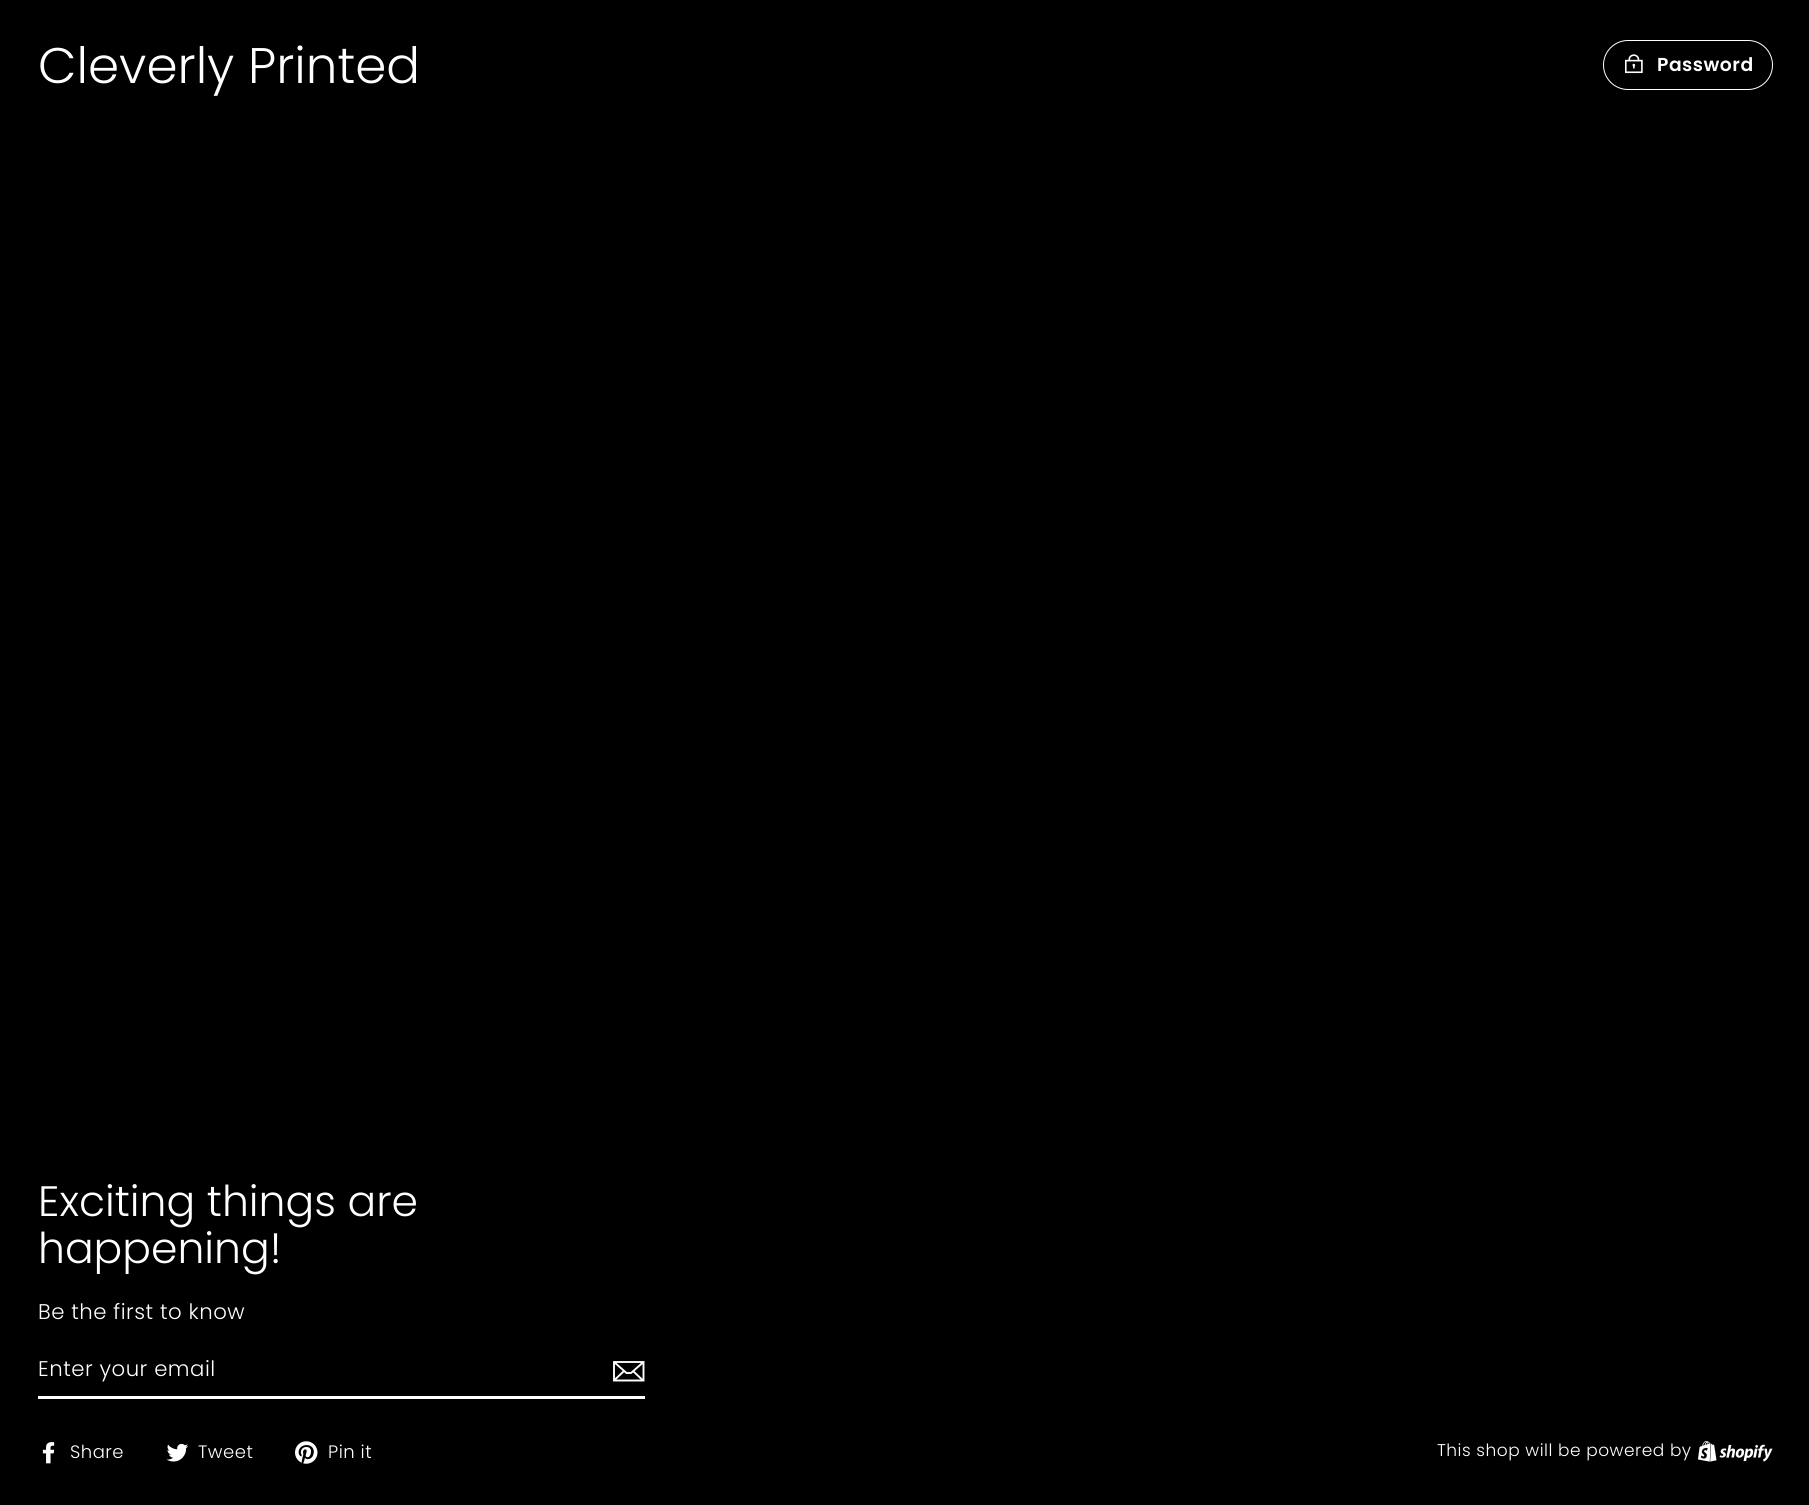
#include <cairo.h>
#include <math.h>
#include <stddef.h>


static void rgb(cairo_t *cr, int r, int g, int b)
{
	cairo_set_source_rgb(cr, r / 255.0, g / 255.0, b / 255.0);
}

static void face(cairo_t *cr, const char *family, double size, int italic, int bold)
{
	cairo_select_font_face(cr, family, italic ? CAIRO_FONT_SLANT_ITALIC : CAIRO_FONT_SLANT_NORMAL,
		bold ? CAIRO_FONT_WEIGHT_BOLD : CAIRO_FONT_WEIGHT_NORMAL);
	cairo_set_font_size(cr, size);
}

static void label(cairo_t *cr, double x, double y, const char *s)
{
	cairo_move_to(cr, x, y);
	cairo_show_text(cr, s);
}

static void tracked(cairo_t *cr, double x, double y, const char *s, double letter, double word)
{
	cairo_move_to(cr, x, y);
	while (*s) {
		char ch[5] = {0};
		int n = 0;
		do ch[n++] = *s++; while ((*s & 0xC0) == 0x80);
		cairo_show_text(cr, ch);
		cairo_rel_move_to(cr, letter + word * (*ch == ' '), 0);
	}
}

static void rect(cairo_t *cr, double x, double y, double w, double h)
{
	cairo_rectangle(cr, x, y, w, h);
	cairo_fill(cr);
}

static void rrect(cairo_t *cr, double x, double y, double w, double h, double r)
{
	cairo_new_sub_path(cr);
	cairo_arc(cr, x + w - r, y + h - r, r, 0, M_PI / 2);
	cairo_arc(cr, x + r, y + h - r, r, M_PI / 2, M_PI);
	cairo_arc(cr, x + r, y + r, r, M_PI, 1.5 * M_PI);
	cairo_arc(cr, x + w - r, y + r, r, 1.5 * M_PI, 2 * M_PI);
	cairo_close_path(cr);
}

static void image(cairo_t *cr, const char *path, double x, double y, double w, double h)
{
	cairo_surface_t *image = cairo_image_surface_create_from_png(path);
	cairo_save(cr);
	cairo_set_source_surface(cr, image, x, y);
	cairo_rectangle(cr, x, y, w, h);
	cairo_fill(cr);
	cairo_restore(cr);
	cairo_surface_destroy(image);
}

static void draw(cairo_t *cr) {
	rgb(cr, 0, 0, 0);
	cairo_paint(cr);
	face(cr, "Poppins Light", 50, 0, 0);
	rgb(cr, 255, 255, 255);
	label(cr, 38, 83, "Cleverly Printed");
	rrect(cr, 1603.5, 40.5, 169, 49, 24.5);
	cairo_set_line_width(cr, 1);
	cairo_stroke(cr);
	image(cr, "image0.png", 1625, 54, 18, 20);
	face(cr, "Poppins SemiBold", 18.75, 0, 0);
	tracked(cr, 1657, 71, "Password", 0.5, 0);
	face(cr, "Poppins Light", 42.5, 0, 0);
	label(cr, 38, 1216, "Exciting things are");
	label(cr, 38, 1263, "happening!");
	face(cr, "Poppins Light", 21.25, 0, 0);
	tracked(cr, 38, 1319, "Be the first to know", 0.5, 0);
	rect(cr, 38, 1396, 607, 3);
	tracked(cr, 38, 1376, "Enter your email", 0.5, 0);
	cairo_new_path(cr);
	cairo_move_to(cr, 643.5, 1380.5);
	cairo_line_to(cr, 614, 1380.5);
	cairo_line_to(cr, 614, 1362);
	cairo_line_to(cr, 643.5, 1362);
	cairo_close_path(cr);
	cairo_move_to(cr, 614, 1362);
	cairo_line_to(cr, 626.5, 1373);
	cairo_line_to(cr, 631, 1373);
	cairo_line_to(cr, 643.5, 1362);
	cairo_move_to(cr, 624, 1371);
	cairo_line_to(cr, 614.5, 1380);
	cairo_move_to(cr, 643, 1380.5);
	cairo_line_to(cr, 633, 1371);
	cairo_set_line_width(cr, 1.9);
	cairo_stroke(cr);
	image(cr, "image1.png", 42, 1442, 13, 22);
	face(cr, "Poppins Light", 18, 0, 0);
	tracked(cr, 70, 1458, "Share", 0.5, 0);
	image(cr, "image2.png", 166, 1443, 23, 19);
	tracked(cr, 198, 1458, "Tweet", 0.5, 0);
	image(cr, "image3.png", 295, 1441, 23, 23);
	tracked(cr, 328, 1458, "Pin it", 0.5, 0);
	face(cr, "Poppins Light", 17, 0, 0);
	tracked(cr, 1437, 1456, "This shop will be powered by", 0.5, 0);
	image(cr, "image4.png", 1698, 1441, 75, 21);
}

int main(void) {
	cairo_surface_t *surface = cairo_image_surface_create(CAIRO_FORMAT_RGB24, 1809, 1505);
	cairo_t *cr = cairo_create(surface);
	cairo_font_options_t *options = cairo_font_options_create();
	cairo_font_options_set_hint_metrics(options, CAIRO_HINT_METRICS_OFF);
	cairo_font_options_set_hint_style(options, CAIRO_HINT_STYLE_NONE);
	cairo_set_font_options(cr, options);
	cairo_set_miter_limit(cr, 4);
	draw(cr);
	cairo_surface_write_to_png(surface, "render.png");
	cairo_font_options_destroy(options);
	cairo_destroy(cr);
	cairo_surface_destroy(surface);
	return 0;
}
